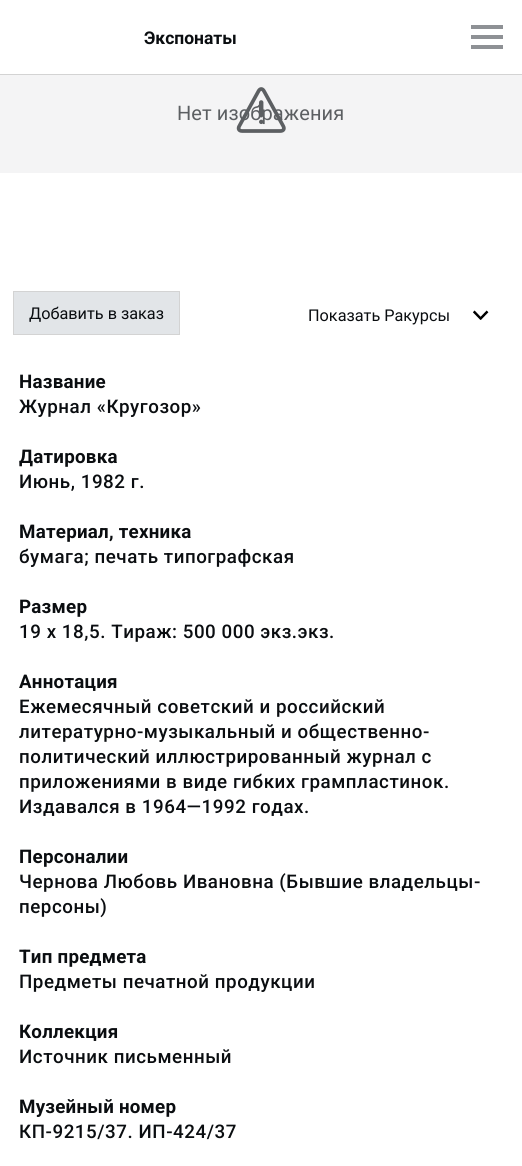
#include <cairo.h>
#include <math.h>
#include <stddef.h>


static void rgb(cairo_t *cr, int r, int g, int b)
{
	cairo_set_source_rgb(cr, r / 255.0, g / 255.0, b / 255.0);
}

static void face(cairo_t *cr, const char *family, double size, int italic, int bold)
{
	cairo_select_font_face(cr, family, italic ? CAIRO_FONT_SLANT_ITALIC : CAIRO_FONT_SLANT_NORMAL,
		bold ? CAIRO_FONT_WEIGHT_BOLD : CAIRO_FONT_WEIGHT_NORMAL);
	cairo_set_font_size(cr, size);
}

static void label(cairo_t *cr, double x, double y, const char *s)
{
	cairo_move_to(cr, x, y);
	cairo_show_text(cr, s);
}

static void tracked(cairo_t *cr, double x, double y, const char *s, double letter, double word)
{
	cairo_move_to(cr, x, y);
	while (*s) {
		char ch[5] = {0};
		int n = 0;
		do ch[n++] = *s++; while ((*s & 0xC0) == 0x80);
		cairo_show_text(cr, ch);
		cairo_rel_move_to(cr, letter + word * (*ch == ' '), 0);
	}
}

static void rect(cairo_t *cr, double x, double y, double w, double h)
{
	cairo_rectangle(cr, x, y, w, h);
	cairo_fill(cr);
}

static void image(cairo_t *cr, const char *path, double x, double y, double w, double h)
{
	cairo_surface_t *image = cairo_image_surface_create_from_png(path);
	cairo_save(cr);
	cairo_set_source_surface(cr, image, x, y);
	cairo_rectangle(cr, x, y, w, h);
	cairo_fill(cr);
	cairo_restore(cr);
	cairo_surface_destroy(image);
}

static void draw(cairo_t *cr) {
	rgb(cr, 255, 255, 255);
	cairo_paint(cr);
	rgb(cr, 211, 211, 211);
	rect(cr, 0, 74, 522, 1);
	face(cr, "Roboto", 17.5, 0, 1);
	rgb(cr, 10, 13, 16);
	label(cr, 144, 44, "Экспонаты");
	rgb(cr, 142, 145, 149);
	rect(cr, 471, 25, 32, 4);
	rect(cr, 471, 35, 32, 4);
	rect(cr, 471, 45, 32, 4);
	rgb(cr, 244, 244, 245);
	rect(cr, 0, 75, 522, 98);
	face(cr, "Roboto", 20, 0, 0);
	rgb(cr, 92, 95, 98);
	tracked(cr, 177, 120, "Нет изображения", 0.1, 0);
	image(cr, "image0.png", 236, 87, 50, 46);
	rgb(cr, 226, 229, 232);
	cairo_rectangle(cr, 13.5, 291.5, 166, 43);
	cairo_fill_preserve(cr);
	rgb(cr, 211, 211, 211);
	cairo_set_line_width(cr, 1);
	cairo_stroke(cr);
	face(cr, "Roboto", 16.25, 0, 0);
	rgb(cr, 10, 13, 16);
	label(cr, 29, 319, "Добавить в заказ");
	label(cr, 308, 321, "Показать Ракурсы");
	image(cr, "image1.png", 473, 310, 16, 10);
	face(cr, "Roboto", 18.75, 0, 1);
	tracked(cr, 19, 388, "Название", 0.25, 0);
	face(cr, "Roboto Medium", 18.75, 0, 0);
	tracked(cr, 19, 413, "Журнал «Кругозор»", 0.55, 0);
	face(cr, "Roboto", 18.75, 0, 1);
	tracked(cr, 19, 463, "Датировка", 0.25, 0);
	face(cr, "Roboto Medium", 18.75, 0, 0);
	tracked(cr, 19, 488, "Июнь, 1982 г.", 0.55, 0);
	face(cr, "Roboto", 18.75, 0, 1);
	tracked(cr, 19, 538, "Материал, техника", 0.25, 0);
	face(cr, "Roboto Medium", 18.75, 0, 0);
	tracked(cr, 19, 563, "бумага; печать типографская", 0.55, 0);
	face(cr, "Roboto", 18.75, 0, 1);
	tracked(cr, 19, 613, "Размер", 0.25, 0);
	face(cr, "Roboto Medium", 18.75, 0, 0);
	tracked(cr, 19, 638, "19 х 18,5. Тираж: 500 000 экз.экз.", 0.55, 0);
	face(cr, "Roboto", 18.75, 0, 1);
	tracked(cr, 19, 688, "Аннотация", 0.25, 0);
	face(cr, "Roboto Medium", 18.75, 0, 0);
	tracked(cr, 19, 713, "Ежемесячный советский и российский", 0.55, 0);
	tracked(cr, 19, 738, "литературно-музыкальный и общественно-", 0.55, 0);
	tracked(cr, 19, 763, "политический иллюстрированный журнал с", 0.55, 0);
	tracked(cr, 19, 788, "приложениями в виде гибких грампластинок.", 0.55, 0);
	tracked(cr, 19, 813, "Издавался в 1964—1992 годах.", 0.55, 0);
	face(cr, "Roboto", 18.75, 0, 1);
	tracked(cr, 19, 863, "Персоналии", 0.25, 0);
	face(cr, "Roboto Medium", 18.75, 0, 0);
	tracked(cr, 19, 888, "Чернова Любовь Ивановна (Бывшие владельцы-", 0.55, 0);
	tracked(cr, 19, 913, "персоны)", 0.55, 0);
	face(cr, "Roboto", 18.75, 0, 1);
	tracked(cr, 19, 963, "Тип предмета", 0.25, 0);
	face(cr, "Roboto Medium", 18.75, 0, 0);
	tracked(cr, 19, 988, "Предметы печатной продукции", 0.55, 0);
	face(cr, "Roboto", 18.75, 0, 1);
	tracked(cr, 19, 1038, "Коллекция", 0.25, 0);
	face(cr, "Roboto Medium", 18.75, 0, 0);
	tracked(cr, 19, 1063, "Источник письменный", 0.55, 0);
	face(cr, "Roboto", 18.75, 0, 1);
	tracked(cr, 19, 1113, "Музейный номер", 0.25, 0);
	face(cr, "Roboto Medium", 18.75, 0, 0);
	tracked(cr, 19, 1138, "КП-9215/37. ИП-424/37", 0.55, 0);
}

int main(void) {
	cairo_surface_t *surface = cairo_image_surface_create(CAIRO_FORMAT_RGB24, 522, 1166);
	cairo_t *cr = cairo_create(surface);
	cairo_font_options_t *options = cairo_font_options_create();
	cairo_font_options_set_hint_metrics(options, CAIRO_HINT_METRICS_OFF);
	cairo_font_options_set_hint_style(options, CAIRO_HINT_STYLE_NONE);
	cairo_set_font_options(cr, options);
	cairo_set_miter_limit(cr, 4);
	draw(cr);
	cairo_surface_write_to_png(surface, "render.png");
	cairo_font_options_destroy(options);
	cairo_destroy(cr);
	cairo_surface_destroy(surface);
	return 0;
}
